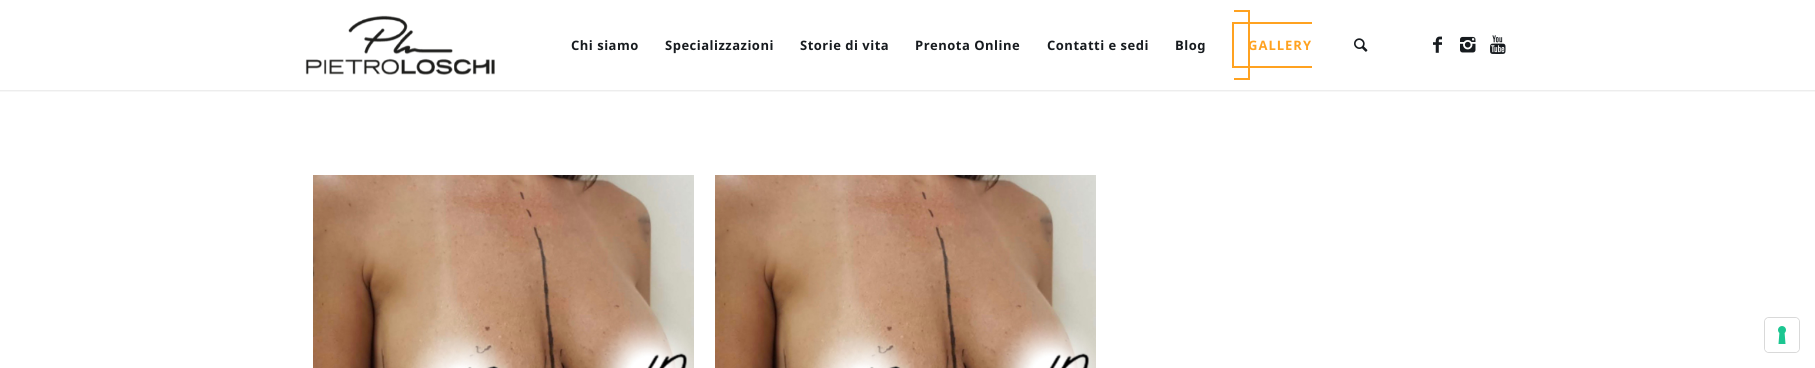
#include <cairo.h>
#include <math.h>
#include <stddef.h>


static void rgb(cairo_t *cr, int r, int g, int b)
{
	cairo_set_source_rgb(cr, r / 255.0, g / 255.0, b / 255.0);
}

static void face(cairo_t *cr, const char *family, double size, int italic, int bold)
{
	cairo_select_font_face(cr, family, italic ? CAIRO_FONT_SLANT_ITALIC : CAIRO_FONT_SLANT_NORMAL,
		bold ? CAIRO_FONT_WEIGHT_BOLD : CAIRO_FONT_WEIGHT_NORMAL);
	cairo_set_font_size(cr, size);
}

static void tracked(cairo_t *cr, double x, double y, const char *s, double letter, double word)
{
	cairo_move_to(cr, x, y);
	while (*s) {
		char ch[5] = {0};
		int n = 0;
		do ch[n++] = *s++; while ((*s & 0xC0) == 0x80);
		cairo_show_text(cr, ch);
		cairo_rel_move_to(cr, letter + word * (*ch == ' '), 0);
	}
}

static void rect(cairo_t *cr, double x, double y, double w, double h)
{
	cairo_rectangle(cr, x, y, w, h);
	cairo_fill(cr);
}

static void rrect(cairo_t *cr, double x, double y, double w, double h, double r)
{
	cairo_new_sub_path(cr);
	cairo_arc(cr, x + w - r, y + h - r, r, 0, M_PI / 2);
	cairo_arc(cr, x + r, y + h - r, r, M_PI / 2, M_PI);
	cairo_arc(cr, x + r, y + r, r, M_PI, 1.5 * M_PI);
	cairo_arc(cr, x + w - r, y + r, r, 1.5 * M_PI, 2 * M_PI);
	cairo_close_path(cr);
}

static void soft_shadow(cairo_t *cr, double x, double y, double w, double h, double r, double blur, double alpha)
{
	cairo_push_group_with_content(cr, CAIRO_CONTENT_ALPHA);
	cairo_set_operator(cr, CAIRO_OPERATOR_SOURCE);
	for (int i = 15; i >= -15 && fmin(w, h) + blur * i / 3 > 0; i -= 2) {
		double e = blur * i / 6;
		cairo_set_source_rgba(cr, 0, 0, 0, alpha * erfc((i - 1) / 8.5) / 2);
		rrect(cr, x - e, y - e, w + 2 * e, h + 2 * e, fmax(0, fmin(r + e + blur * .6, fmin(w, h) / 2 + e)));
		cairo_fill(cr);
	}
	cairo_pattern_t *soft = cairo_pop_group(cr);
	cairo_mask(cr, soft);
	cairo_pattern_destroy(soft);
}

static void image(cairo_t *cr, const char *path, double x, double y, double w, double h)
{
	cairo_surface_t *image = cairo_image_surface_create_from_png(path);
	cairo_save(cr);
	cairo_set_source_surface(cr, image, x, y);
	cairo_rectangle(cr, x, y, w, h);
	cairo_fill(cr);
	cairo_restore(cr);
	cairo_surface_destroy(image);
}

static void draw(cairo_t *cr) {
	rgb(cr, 255, 255, 255);
	cairo_paint(cr);
	cairo_save(cr);
	cairo_rectangle(cr, 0, 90, 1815, 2);
	cairo_clip(cr);
	rgb(cr, 0, 0, 0);
	soft_shadow(cr, -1, -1, 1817, 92, 0, 1, 0.1);
	cairo_restore(cr);
	image(cr, "image0.png", 305, 15, 190, 60);
	face(cr, "Noto Sans", 13, 0, 1);
	rgb(cr, 23, 27, 31);
	tracked(cr, 571, 50, "Chi siamo", 0.5, 0);
	tracked(cr, 665, 50, "Specializzazioni", 0.5, 0);
	tracked(cr, 800, 50, "Storie di vita", 0.5, 0);
	tracked(cr, 915, 50, "Prenota Online", 0.5, 0);
	tracked(cr, 1047, 50, "Contatti e sedi", 0.5, 0);
	tracked(cr, 1175, 50, "Blog", 0.5, 0);
	rgb(cr, 255, 162, 32);
	rect(cr, 1232, 22, 80, 2);
	rect(cr, 1232, 66, 80, 2);
	rect(cr, 1234, 10, 16, 2);
	rect(cr, 1248, 10, 2, 70);
	tracked(cr, 1248, 50, "GALLERY", 1, 0);
	rect(cr, 1232, 22, 2, 46);
	rect(cr, 1234, 78, 16, 2);
	image(cr, "image1.png", 1354, 38, 14, 14);
	image(cr, "image2.png", 1433, 36, 9, 17);
	image(cr, "image3.png", 1460, 36, 16, 17);
	image(cr, "image4.png", 1490, 35, 16, 19);
	image(cr, "image5.png", 313, 175, 381, 193);
	image(cr, "image5.png", 715, 175, 381, 193);
	rrect(cr, 1764.5, 317.5, 35, 35, 4.5);
	rgb(cr, 217, 217, 217);
	cairo_set_line_width(cr, 1);
	cairo_stroke(cr);
	rgb(cr, 255, 255, 255);
	rrect(cr, 1765, 318, 34, 34, 4);
	cairo_fill(cr);
	image(cr, "image6.png", 1778, 326, 8, 18);
}

int main(void) {
	cairo_surface_t *surface = cairo_image_surface_create(CAIRO_FORMAT_RGB24, 1815, 368);
	cairo_t *cr = cairo_create(surface);
	cairo_font_options_t *options = cairo_font_options_create();
	cairo_font_options_set_hint_metrics(options, CAIRO_HINT_METRICS_OFF);
	cairo_font_options_set_hint_style(options, CAIRO_HINT_STYLE_NONE);
	cairo_set_font_options(cr, options);
	cairo_set_miter_limit(cr, 4);
	draw(cr);
	cairo_surface_write_to_png(surface, "render.png");
	cairo_font_options_destroy(options);
	cairo_destroy(cr);
	cairo_surface_destroy(surface);
	return 0;
}
